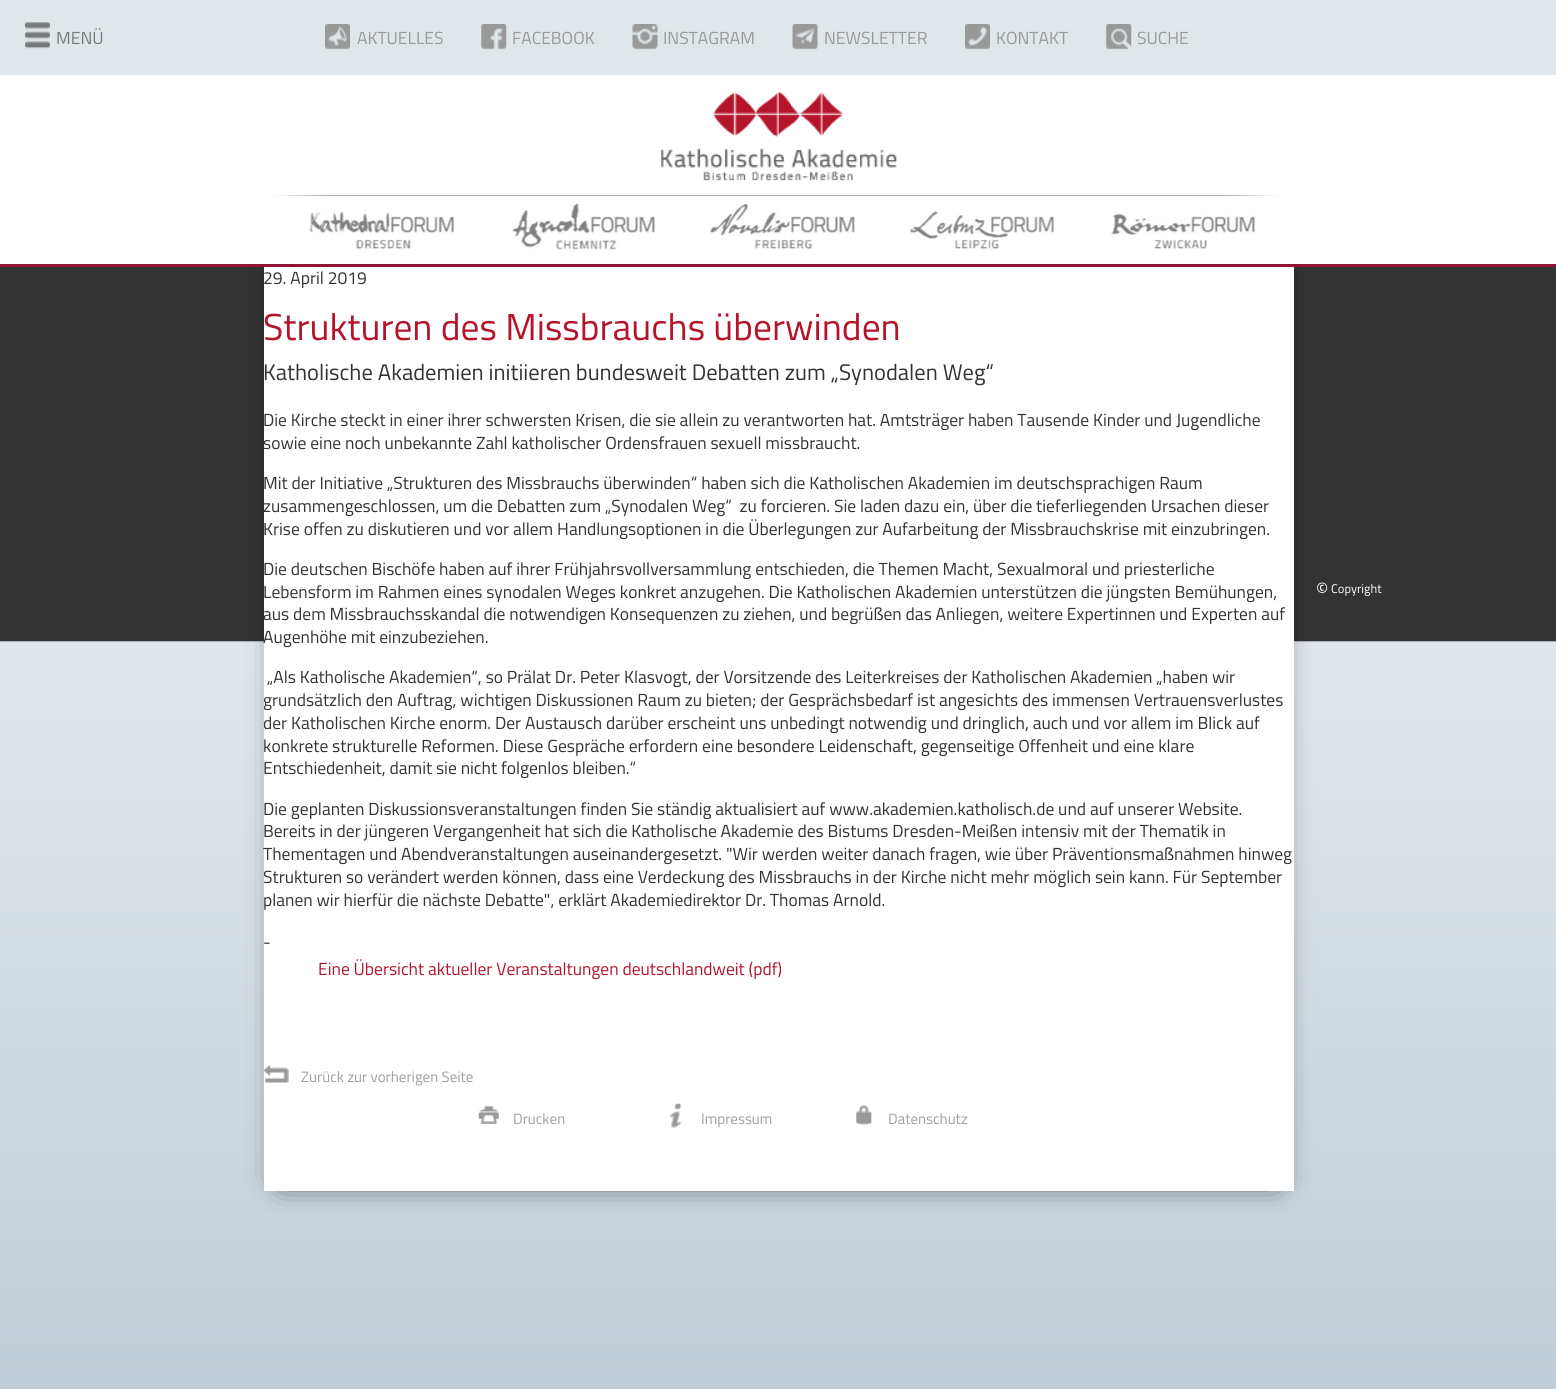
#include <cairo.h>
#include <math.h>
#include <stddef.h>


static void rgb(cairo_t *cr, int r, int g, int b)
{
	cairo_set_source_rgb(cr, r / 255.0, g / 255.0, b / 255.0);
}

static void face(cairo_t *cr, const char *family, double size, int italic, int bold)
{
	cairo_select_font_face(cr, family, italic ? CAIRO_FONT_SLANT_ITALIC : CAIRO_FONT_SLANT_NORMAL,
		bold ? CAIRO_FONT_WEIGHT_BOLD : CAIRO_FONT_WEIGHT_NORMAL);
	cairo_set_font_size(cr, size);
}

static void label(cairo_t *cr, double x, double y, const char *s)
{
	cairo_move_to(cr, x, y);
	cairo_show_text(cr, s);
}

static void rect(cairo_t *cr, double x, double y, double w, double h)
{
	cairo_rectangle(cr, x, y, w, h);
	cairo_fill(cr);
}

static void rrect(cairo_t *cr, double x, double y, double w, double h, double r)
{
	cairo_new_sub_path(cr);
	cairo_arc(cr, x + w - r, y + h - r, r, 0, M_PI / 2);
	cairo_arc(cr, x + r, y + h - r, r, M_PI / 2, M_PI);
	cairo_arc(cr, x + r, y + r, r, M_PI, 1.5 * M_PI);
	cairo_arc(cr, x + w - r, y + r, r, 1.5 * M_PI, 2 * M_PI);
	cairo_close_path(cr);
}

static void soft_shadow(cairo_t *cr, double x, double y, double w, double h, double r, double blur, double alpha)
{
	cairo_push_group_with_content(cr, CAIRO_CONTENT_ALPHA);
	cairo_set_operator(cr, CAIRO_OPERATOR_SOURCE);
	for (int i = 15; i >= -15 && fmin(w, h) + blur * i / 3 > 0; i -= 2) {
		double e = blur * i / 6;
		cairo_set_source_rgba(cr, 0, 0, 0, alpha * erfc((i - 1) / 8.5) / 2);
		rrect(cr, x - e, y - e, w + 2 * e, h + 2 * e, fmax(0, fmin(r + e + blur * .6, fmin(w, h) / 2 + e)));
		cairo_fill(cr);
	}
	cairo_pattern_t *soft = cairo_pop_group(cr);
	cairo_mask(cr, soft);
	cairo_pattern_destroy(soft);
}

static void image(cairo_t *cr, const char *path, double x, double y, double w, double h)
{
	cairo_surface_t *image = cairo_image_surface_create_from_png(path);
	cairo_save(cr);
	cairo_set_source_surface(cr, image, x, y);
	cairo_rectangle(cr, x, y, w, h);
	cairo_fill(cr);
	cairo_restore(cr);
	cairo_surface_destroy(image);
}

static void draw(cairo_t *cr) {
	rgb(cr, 255, 255, 255);
	cairo_paint(cr);
	image(cr, "image14.png", 0, 267, 1556, 1122);
	cairo_save(cr);
	cairo_rectangle(cr, 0, 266, 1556, 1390);
	cairo_clip(cr);
	rgb(cr, 0, 0, 0);
	soft_shadow(cr, 283, 254, 992, 925, 0, 15.5, 1);
	cairo_restore(cr);
	rgb(cr, 146, 18, 51);
	rect(cr, 0, 264, 1556, 3);
	rgb(cr, 223, 231, 235);
	rect(cr, 0, 0, 1556, 75);
	image(cr, "image0.png", 25, 22, 25, 27);
	face(cr, "Titillium Web", 17.5, 0, 0);
	rgb(cr, 120, 123, 125);
	label(cr, 56, 44, "MENÜ");
	image(cr, "image1.png", 325, 24, 25, 26);
	rgb(cr, 153, 153, 153);
	label(cr, 357, 44, "AKTUELLES");
	image(cr, "image2.png", 481, 24, 26, 26);
	label(cr, 512, 44, "FACEBOOK");
	image(cr, "image3.png", 632, 24, 26, 26);
	label(cr, 663, 44, "INSTAGRAM");
	image(cr, "image4.png", 792, 24, 26, 26);
	label(cr, 824, 44, "NEWSLETTER");
	image(cr, "image5.png", 965, 24, 25, 26);
	label(cr, 996, 44, "KONTAKT");
	image(cr, "image6.png", 1106, 24, 26, 26);
	label(cr, 1137, 44, "SUCHE");
	image(cr, "image7.png", 272, 194, 1008, 2);
	image(cr, "image8.png", 661, 92, 236, 89);
	image(cr, "image9.png", 310, 211, 145, 39);
	image(cr, "image10.png", 512, 203, 143, 47);
	image(cr, "image11.png", 710, 203, 145, 47);
	image(cr, "image12.png", 910, 211, 145, 39);
	image(cr, "image13.png", 1111, 214, 144, 36);
	rgb(cr, 255, 255, 255);
	rect(cr, 264, 267, 1030, 924);
	rgb(cr, 51, 51, 51);
	label(cr, 263, 284, "29. April 2019");
	face(cr, "Titillium Web", 37.5, 0, 0);
	rgb(cr, 181, 21, 43);
	label(cr, 263, 340, "Strukturen des Missbrauchs überwinden");
	face(cr, "Titillium Web", 22.5, 0, 0);
	rgb(cr, 51, 51, 51);
	label(cr, 263, 380, "Katholische Akademien initiieren bundesweit Debatten zum „Synodalen Weg“");
	face(cr, "Titillium Web", 17.5, 0, 0);
	label(cr, 263, 426, "Die Kirche steckt in einer ihrer schwersten Krisen, die sie allein zu verantworten hat. Amtsträger haben Tausende Kinder und Jugendliche");
	label(cr, 263, 449, "sowie eine noch unbekannte Zahl katholischer Ordensfrauen sexuell missbraucht.");
	label(cr, 263, 489, "Mit der Initiative „Strukturen des Missbrauchs überwinden“ haben sich die Katholischen Akademien im deutschsprachigen Raum");
	label(cr, 263, 512, "zusammengeschlossen, um die Debatten zum „Synodalen Weg“  zu forcieren. Sie laden dazu ein, über die tieferliegenden Ursachen dieser");
	label(cr, 263, 535, "Krise offen zu diskutieren und vor allem Handlungsoptionen in die Überlegungen zur Aufarbeitung der Missbrauchskrise mit einzubringen.");
	label(cr, 263, 575, "Die deutschen Bischöfe haben auf ihrer Frühjahrsvollversammlung entschieden, die Themen Macht, Sexualmoral und priesterliche");
	label(cr, 263, 598, "Lebensform im Rahmen eines synodalen Weges konkret anzugehen. Die Katholischen Akademien unterstützen die jüngsten Bemühungen,");
	label(cr, 263, 620, "aus dem Missbrauchsskandal die notwendigen Konsequenzen zu ziehen, und begrüßen das Anliegen, weitere Expertinnen und Experten auf");
	label(cr, 263, 643, "Augenhöhe mit einzubeziehen.");
	label(cr, 267, 683, "„Als Katholische Akademien“, so Prälat Dr. Peter Klasvogt, der Vorsitzende des Leiterkreises der Katholischen Akademien „haben wir");
	label(cr, 263, 706, "grundsätzlich den Auftrag, wichtigen Diskussionen Raum zu bieten; der Gesprächsbedarf ist angesichts des immensen Vertrauensverlustes");
	label(cr, 263, 729, "der Katholischen Kirche enorm. Der Austausch darüber erscheint uns unbedingt notwendig und dringlich, auch und vor allem im Blick auf");
	label(cr, 263, 752, "konkrete strukturelle Reformen. Diese Gespräche erfordern eine besondere Leidenschaft, gegenseitige Offenheit und eine klare");
	label(cr, 263, 774, "Entschiedenheit, damit sie nicht folgenlos bleiben.“");
	label(cr, 263, 815, "Die geplanten Diskussionsveranstaltungen finden Sie ständig aktualisiert auf www.akademien.katholisch.de und auf unserer Website.");
	label(cr, 263, 837, "Bereits in der jüngeren Vergangenheit hat sich die Katholische Akademie des Bistums Dresden-Meißen intensiv mit der Thematik in");
	label(cr, 263, 860, "Thementagen und Abendveranstaltungen auseinandergesetzt. \"Wir werden weiter danach fragen, wie über Präventionsmaßnahmen hinweg");
	label(cr, 263, 883, "Strukturen so verändert werden können, dass eine Verdeckung des Missbrauchs in der Kirche nicht mehr möglich sein kann. Für September");
	label(cr, 263, 906, "planen wir hierfür die nächste Debatte\", erklärt Akademiedirektor Dr. Thomas Arnold.");
	label(cr, 263, 948, "-");
	rgb(cr, 181, 21, 43);
	label(cr, 318, 975, "Eine Übersicht aktueller Veranstaltungen deutschlandweit (pdf)");
	image(cr, "image15.png", 263, 1065, 26, 18);
	face(cr, "Titillium Web", 15, 0, 0);
	rgb(cr, 159, 159, 159);
	label(cr, 301, 1082, "Zurück zur vorherigen Seite");
	face(cr, "Titillium Web", 19, 0, 0);
	rgb(cr, 255, 255, 255);
	label(cr, 1316, 596, "©");
	face(cr, "Titillium Web", 12.5, 0, 0);
	label(cr, 1331, 593, "Copyright");
	image(cr, "image16.png", 478, 1106, 21, 18);
	face(cr, "Titillium Web", 15, 0, 0);
	rgb(cr, 159, 159, 159);
	label(cr, 513, 1124, "Drucken");
	image(cr, "image17.png", 669, 1103, 13, 25);
	label(cr, 701, 1124, "Impressum");
	image(cr, "image18.png", 856, 1105, 16, 20);
	label(cr, 888, 1124, "Datenschutz");
}

int main(void) {
	cairo_surface_t *surface = cairo_image_surface_create(CAIRO_FORMAT_RGB24, 1556, 1389);
	cairo_t *cr = cairo_create(surface);
	cairo_font_options_t *options = cairo_font_options_create();
	cairo_font_options_set_hint_metrics(options, CAIRO_HINT_METRICS_OFF);
	cairo_font_options_set_hint_style(options, CAIRO_HINT_STYLE_NONE);
	cairo_set_font_options(cr, options);
	cairo_set_miter_limit(cr, 4);
	draw(cr);
	cairo_surface_write_to_png(surface, "render.png");
	cairo_font_options_destroy(options);
	cairo_destroy(cr);
	cairo_surface_destroy(surface);
	return 0;
}
